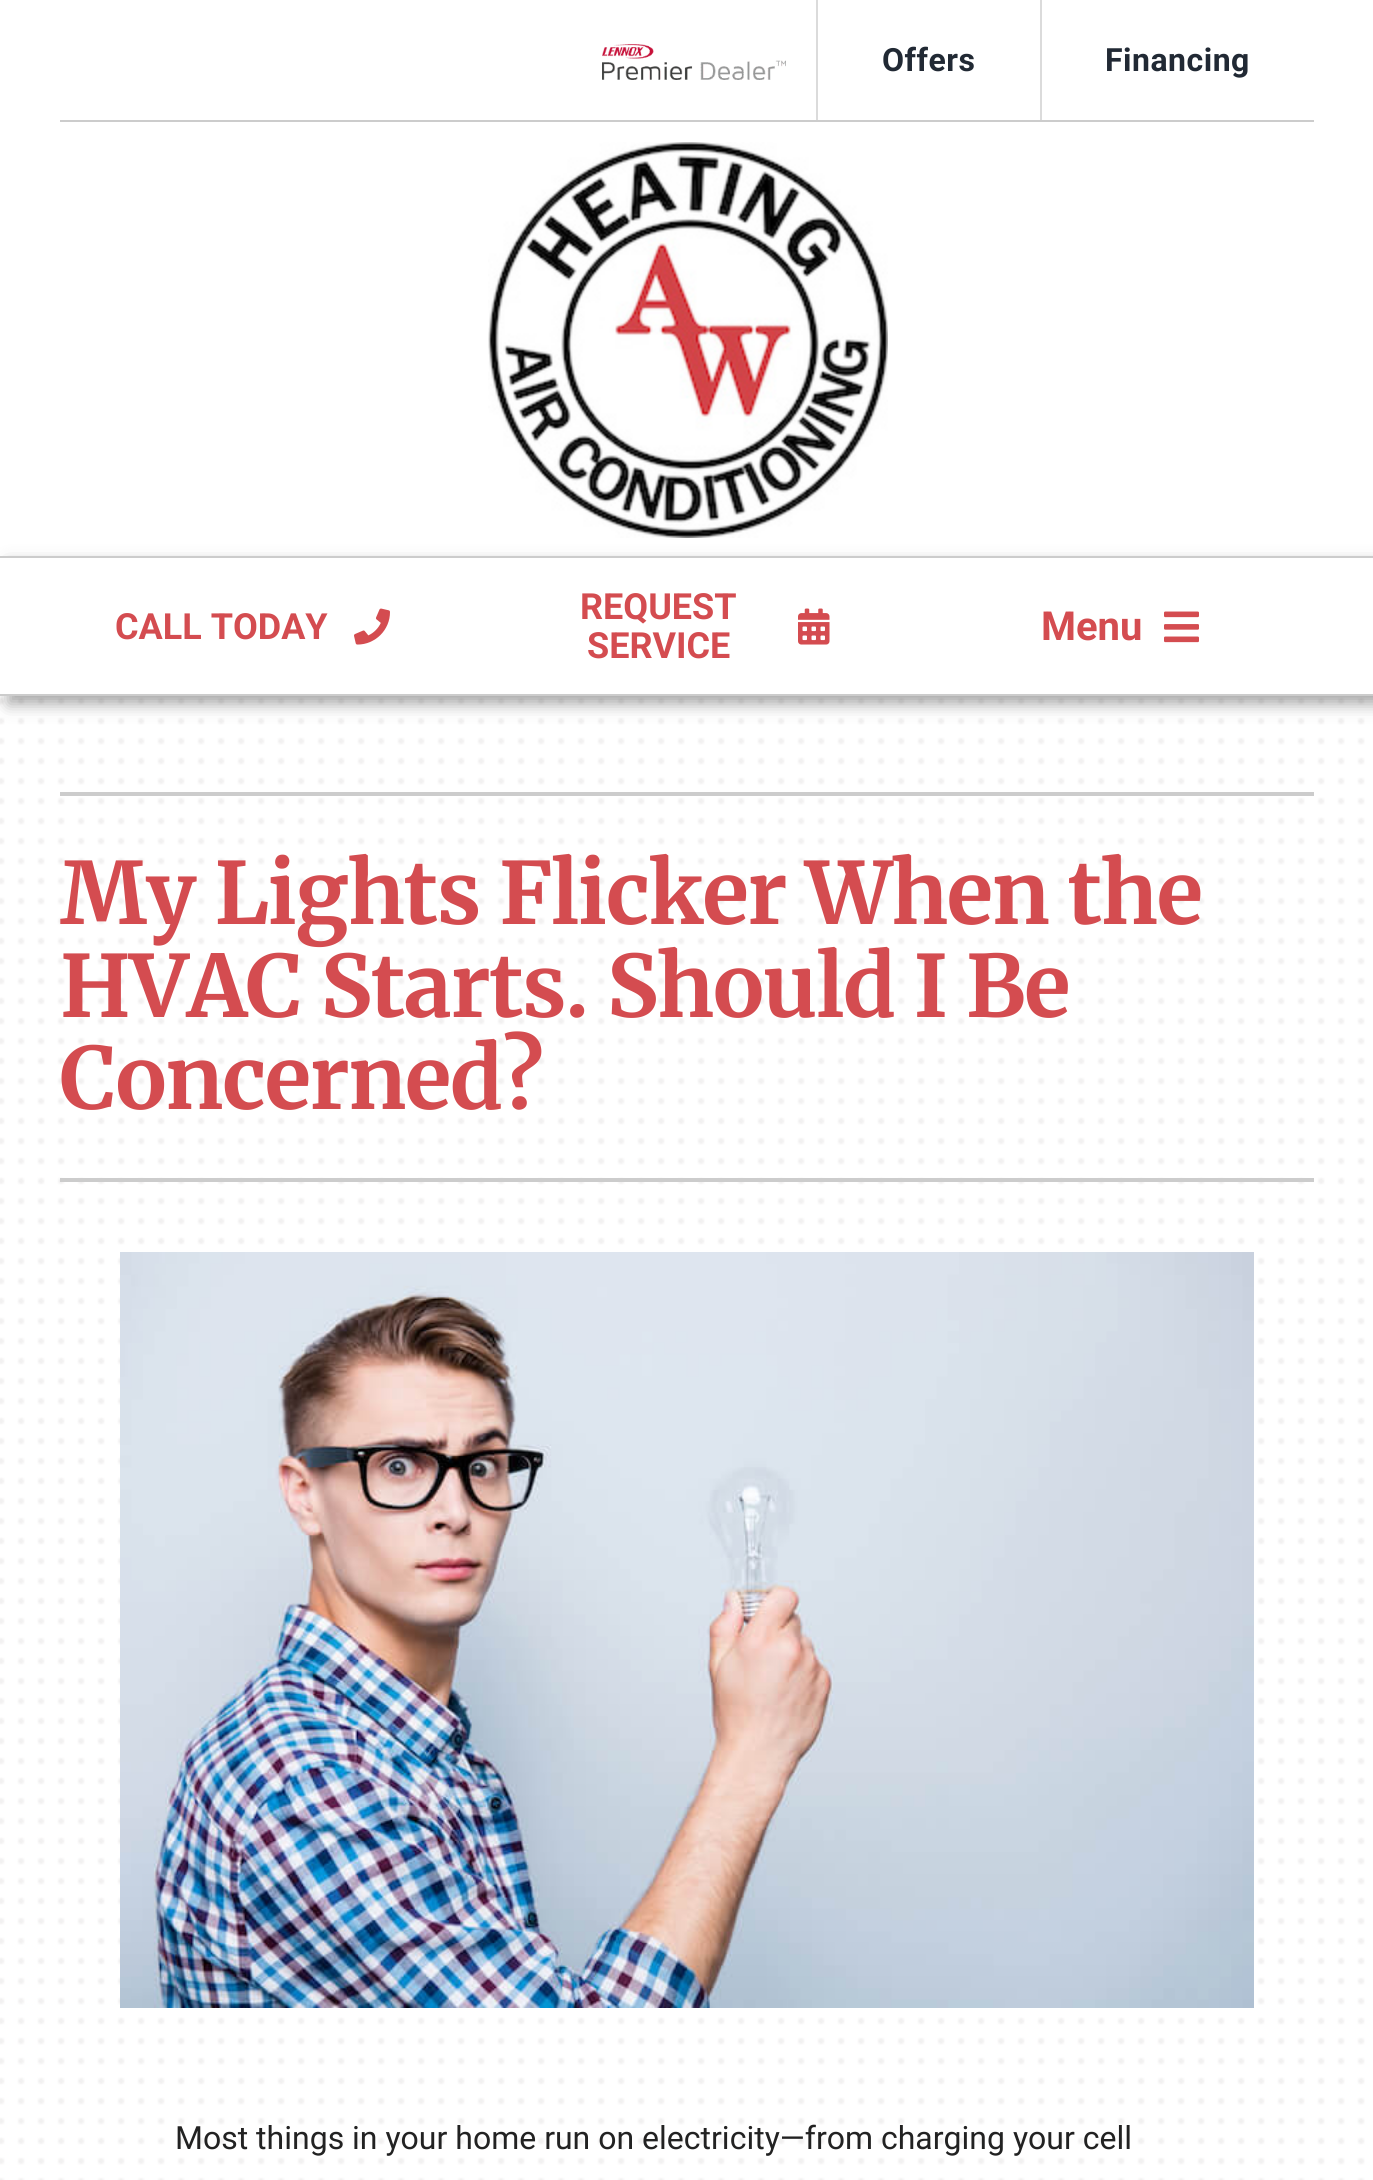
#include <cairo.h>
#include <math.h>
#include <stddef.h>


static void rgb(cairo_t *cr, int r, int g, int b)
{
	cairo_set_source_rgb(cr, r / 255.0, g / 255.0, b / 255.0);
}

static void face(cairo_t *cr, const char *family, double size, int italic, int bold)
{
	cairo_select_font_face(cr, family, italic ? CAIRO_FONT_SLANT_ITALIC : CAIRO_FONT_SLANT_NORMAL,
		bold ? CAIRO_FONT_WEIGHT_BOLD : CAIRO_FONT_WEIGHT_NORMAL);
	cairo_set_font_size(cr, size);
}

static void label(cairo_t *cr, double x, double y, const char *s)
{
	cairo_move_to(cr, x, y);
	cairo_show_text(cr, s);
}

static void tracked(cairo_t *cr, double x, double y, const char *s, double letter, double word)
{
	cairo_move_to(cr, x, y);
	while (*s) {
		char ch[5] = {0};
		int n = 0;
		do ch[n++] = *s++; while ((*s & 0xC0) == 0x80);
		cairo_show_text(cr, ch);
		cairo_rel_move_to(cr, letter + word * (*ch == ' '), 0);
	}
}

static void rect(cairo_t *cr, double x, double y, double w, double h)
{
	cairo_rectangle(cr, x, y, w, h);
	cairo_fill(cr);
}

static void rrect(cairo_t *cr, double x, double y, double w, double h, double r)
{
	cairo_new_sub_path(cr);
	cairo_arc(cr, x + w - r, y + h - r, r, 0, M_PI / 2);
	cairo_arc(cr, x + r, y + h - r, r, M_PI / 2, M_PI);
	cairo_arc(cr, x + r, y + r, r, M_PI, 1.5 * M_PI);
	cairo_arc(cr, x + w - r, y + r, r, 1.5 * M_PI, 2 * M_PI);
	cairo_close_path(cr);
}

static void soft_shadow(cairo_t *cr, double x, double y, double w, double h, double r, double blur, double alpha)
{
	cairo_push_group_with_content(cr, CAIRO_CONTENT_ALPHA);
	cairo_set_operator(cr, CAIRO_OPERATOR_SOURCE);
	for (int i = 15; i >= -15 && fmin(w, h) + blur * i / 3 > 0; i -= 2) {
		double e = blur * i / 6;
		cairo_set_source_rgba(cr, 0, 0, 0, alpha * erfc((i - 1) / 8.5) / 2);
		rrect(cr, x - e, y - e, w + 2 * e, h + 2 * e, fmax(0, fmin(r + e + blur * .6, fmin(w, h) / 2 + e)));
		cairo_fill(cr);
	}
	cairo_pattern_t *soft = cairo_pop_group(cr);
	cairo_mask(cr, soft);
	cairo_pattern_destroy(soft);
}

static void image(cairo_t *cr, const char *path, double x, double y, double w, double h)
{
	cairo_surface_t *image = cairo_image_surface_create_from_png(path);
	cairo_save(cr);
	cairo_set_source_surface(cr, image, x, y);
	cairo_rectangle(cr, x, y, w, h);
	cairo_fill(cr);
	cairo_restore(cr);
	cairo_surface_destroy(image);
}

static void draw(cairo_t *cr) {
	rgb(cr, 255, 255, 255);
	cairo_paint(cr);
	image(cr, "image0.png", 0, 697, 1365, 1483);
	rgb(cr, 204, 204, 204);
	rect(cr, 60, 120, 1254, 2);
	image(cr, "image1.png", 602, 44, 184, 36);
	rgb(cr, 219, 219, 219);
	rect(cr, 816, 0, 2, 120);
	face(cr, "Roboto", 32, 0, 1);
	rgb(cr, 33, 41, 52);
	tracked(cr, 882, 71, "Offers", 0.5, 0);
	rgb(cr, 219, 219, 219);
	rect(cr, 1040, 0, 2, 120);
	rgb(cr, 33, 41, 52);
	tracked(cr, 1105, 71, "Financing", 0.5, 0);
	image(cr, "image2.png", 488, 142, 400, 396);
	rgb(cr, 33, 33, 33);
	soft_shadow(cr, 8, 564, 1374, 140, 0, 8, 0.4);
	rgb(cr, 255, 255, 255);
	rect(cr, 0, 558, 1373, 136);
	rgb(cr, 204, 204, 204);
	rect(cr, 0, 556, 1373, 2);
	rect(cr, 0, 694, 1373, 2);
	face(cr, "Roboto", 36, 0, 1);
	rgb(cr, 212, 76, 80);
	label(cr, 115, 639, "CALL TODAY");
	image(cr, "image3.png", 354, 608, 36, 37);
	label(cr, 580, 619, "REQUEST");
	label(cr, 587, 658, "SERVICE");
	image(cr, "image4.png", 798, 608, 32, 37);
	face(cr, "Roboto", 40, 0, 1);
	label(cr, 1041, 640, "Menu");
	image(cr, "image5.png", 1164, 611, 35, 32);
	rgb(cr, 204, 204, 204);
	rect(cr, 60, 792, 1254, 4);
	face(cr, "Merriweather", 85.6, 0, 1);
	rgb(cr, 212, 76, 80);
	tracked(cr, 60, 924, "My Lights Flicker When the", -1.25, 0);
	tracked(cr, 60, 1017, "HVAC Starts. Should I Be", -1.25, 0);
	tracked(cr, 60, 1109, "Concerned?", -1.25, 0);
	rgb(cr, 204, 204, 204);
	rect(cr, 60, 1178, 1254, 4);
	image(cr, "image6.png", 120, 1252, 1134, 756);
	face(cr, "Roboto", 32, 0, 0);
	rgb(cr, 34, 34, 34);
	label(cr, 175, 2149, "Most things in your home run on electricity—from charging your cell");
}

int main(void) {
	cairo_surface_t *surface = cairo_image_surface_create(CAIRO_FORMAT_RGB24, 1373, 2180);
	cairo_t *cr = cairo_create(surface);
	cairo_font_options_t *options = cairo_font_options_create();
	cairo_font_options_set_hint_metrics(options, CAIRO_HINT_METRICS_OFF);
	cairo_font_options_set_hint_style(options, CAIRO_HINT_STYLE_NONE);
	cairo_set_font_options(cr, options);
	cairo_set_miter_limit(cr, 4);
	draw(cr);
	cairo_surface_write_to_png(surface, "render.png");
	cairo_font_options_destroy(options);
	cairo_destroy(cr);
	cairo_surface_destroy(surface);
	return 0;
}
